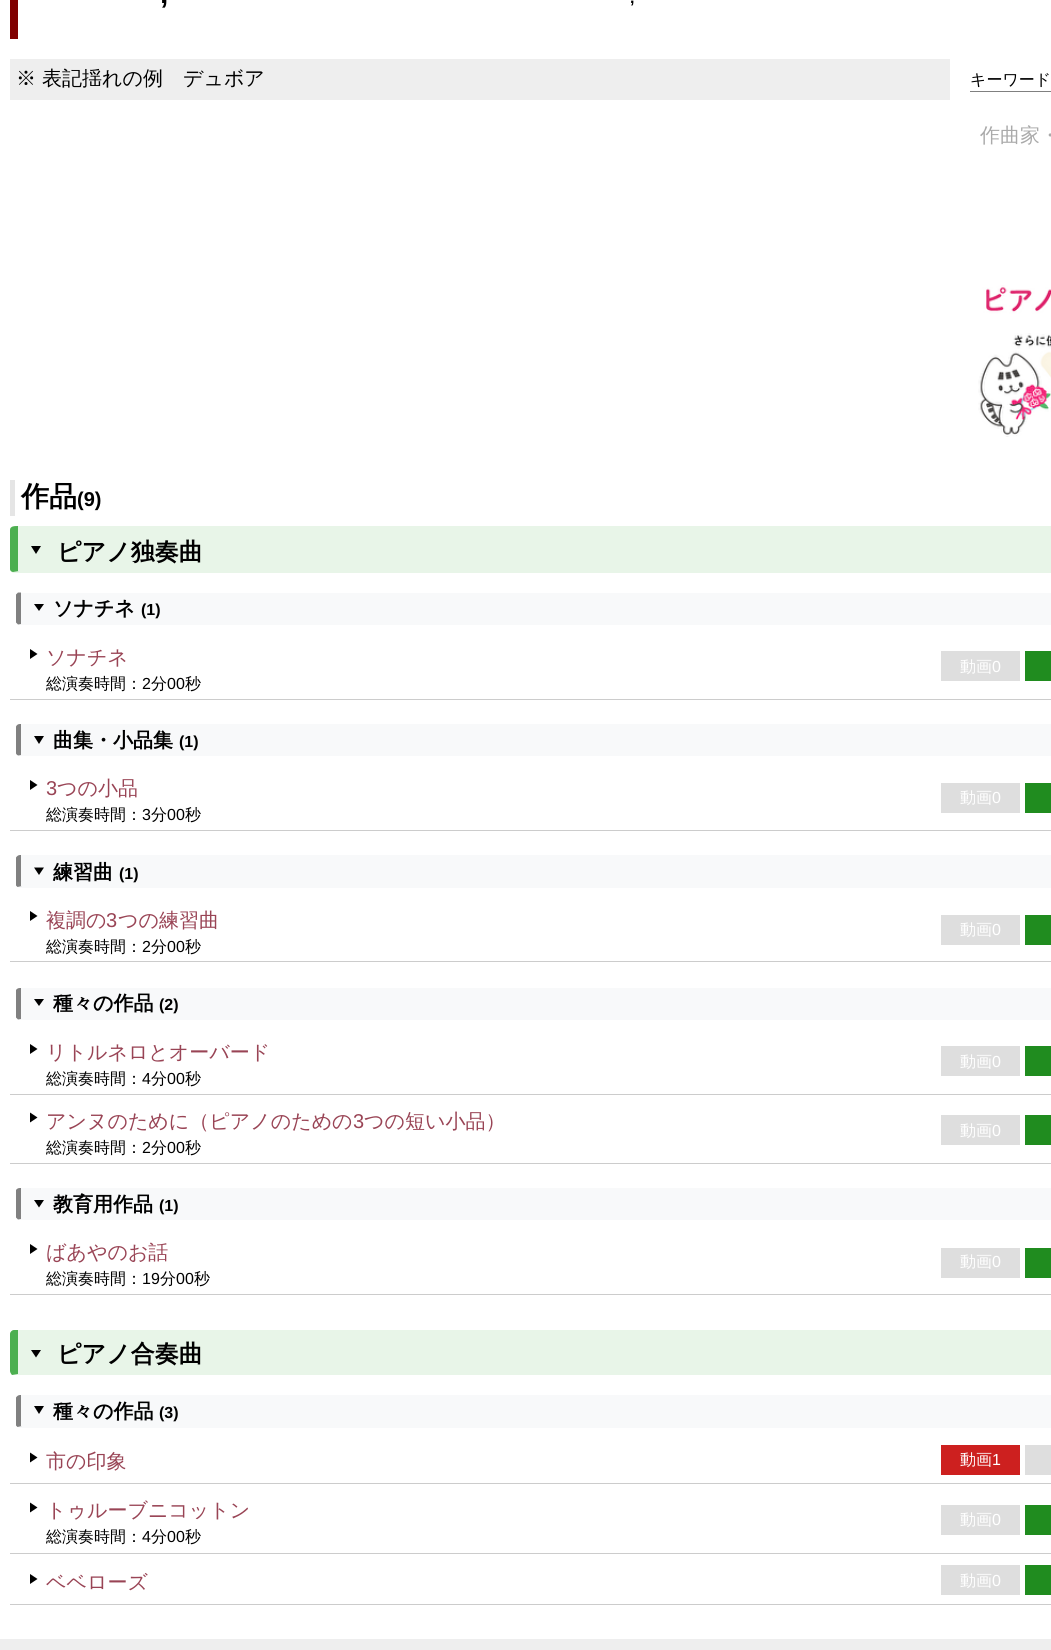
#include <cairo.h>
#include <math.h>
#include <stddef.h>


static void rgb(cairo_t *cr, int r, int g, int b)
{
	cairo_set_source_rgb(cr, r / 255.0, g / 255.0, b / 255.0);
}

static void face(cairo_t *cr, const char *family, double size, int italic, int bold)
{
	cairo_select_font_face(cr, family, italic ? CAIRO_FONT_SLANT_ITALIC : CAIRO_FONT_SLANT_NORMAL,
		bold ? CAIRO_FONT_WEIGHT_BOLD : CAIRO_FONT_WEIGHT_NORMAL);
	cairo_set_font_size(cr, size);
}

static void label(cairo_t *cr, double x, double y, const char *s)
{
	cairo_move_to(cr, x, y);
	cairo_show_text(cr, s);
}

static void rect(cairo_t *cr, double x, double y, double w, double h)
{
	cairo_rectangle(cr, x, y, w, h);
	cairo_fill(cr);
}

static void rrect(cairo_t *cr, double x, double y, double w, double h, double r)
{
	cairo_new_sub_path(cr);
	cairo_arc(cr, x + w - r, y + h - r, r, 0, M_PI / 2);
	cairo_arc(cr, x + r, y + h - r, r, M_PI / 2, M_PI);
	cairo_arc(cr, x + r, y + r, r, M_PI, 1.5 * M_PI);
	cairo_arc(cr, x + w - r, y + r, r, 1.5 * M_PI, 2 * M_PI);
	cairo_close_path(cr);
}

static void image(cairo_t *cr, const char *path, double x, double y, double w, double h)
{
	cairo_surface_t *image = cairo_image_surface_create_from_png(path);
	cairo_save(cr);
	cairo_set_source_surface(cr, image, x, y);
	cairo_rectangle(cr, x, y, w, h);
	cairo_fill(cr);
	cairo_restore(cr);
	cairo_surface_destroy(image);
}

static void draw(cairo_t *cr) {
	rgb(cr, 255, 255, 255);
	cairo_paint(cr);
	rgb(cr, 128, 0, 0);
	rect(cr, 10, 0, 8, 39);
	face(cr, "Liberation Sans", 30, 0, 1);
	rgb(cr, 0, 0, 0);
	label(cr, 160, 3, ",");
	face(cr, "Liberation Sans", 16, 0, 1);
	label(cr, 630, 3, ",");
	rgb(cr, 238, 238, 238);
	rect(cr, 10, 59, 940, 41);
	face(cr, "WenQuanYi Zen Hei Medium", 20, 0, 0);
	rgb(cr, 0, 0, 0);
	label(cr, 16, 85, "※");
	label(cr, 42, 85, "表記揺れの例　デュボア");
	rgb(cr, 128, 128, 128);
	rect(cr, 970, 91, 81, 1);
	face(cr, "WenQuanYi Zen Hei Medium", 16, 0, 0);
	rgb(cr, 0, 0, 0);
	label(cr, 970, 85, "キーワード");
	face(cr, "WenQuanYi Zen Hei Medium", 20, 0, 0);
	rgb(cr, 170, 170, 170);
	label(cr, 980, 142, "作曲家・");
	image(cr, "image0.png", 978, 285, 73, 152);
	rgb(cr, 229, 229, 229);
	rect(cr, 10, 480, 5, 36);
	face(cr, "WenQuanYi Zen Hei", 28, 0, 1);
	rgb(cr, 0, 0, 0);
	label(cr, 21, 506, "作品");
	face(cr, "Liberation Sans", 20, 0, 1);
	label(cr, 77, 506, "(9)");
	rgb(cr, 232, 245, 232);
	rrect(cr, 10, 526, 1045, 47, 4);
	cairo_fill(cr);
	rgb(cr, 76, 175, 80);
	cairo_new_path(cr);
	cairo_move_to(cr, 10, 530);
	cairo_line_to(cr, 10, 569);
	cairo_curve_to(cr, 10, 571, 12, 572, 13, 572);
	cairo_line_to(cr, 19, 571);
	cairo_line_to(cr, 18, 571);
	cairo_line_to(cr, 18, 526);
	cairo_curve_to(cr, 15, 526, 10, 526, 10, 530);
	cairo_close_path(cr);
	cairo_fill(cr);
	rgb(cr, 0, 0, 0);
	cairo_new_path(cr);
	cairo_move_to(cr, 31, 546);
	cairo_line_to(cr, 41, 546);
	cairo_line_to(cr, 36, 554);
	cairo_close_path(cr);
	cairo_fill(cr);
	face(cr, "WenQuanYi Zen Hei", 24, 0, 1);
	label(cr, 57, 560, "ピアノ独奏曲");
	rgb(cr, 248, 249, 250);
	rrect(cr, 16, 593, 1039, 32, 4);
	cairo_fill(cr);
	rgb(cr, 128, 128, 128);
	cairo_new_path(cr);
	cairo_move_to(cr, 16, 594.5);
	cairo_curve_to(cr, 16.5, 594, 17.5, 593, 18, 592.5);
	cairo_line_to(cr, 21, 592.5);
	cairo_line_to(cr, 21, 624);
	cairo_line_to(cr, 18, 624.5);
	cairo_curve_to(cr, 17.5, 624, 16.5, 623, 16, 622.5);
	cairo_close_path(cr);
	cairo_fill(cr);
	rgb(cr, 0, 0, 0);
	cairo_new_path(cr);
	cairo_move_to(cr, 34, 604);
	cairo_line_to(cr, 44, 604);
	cairo_line_to(cr, 39, 611);
	cairo_close_path(cr);
	cairo_fill(cr);
	face(cr, "WenQuanYi Zen Hei", 20, 0, 1);
	label(cr, 53, 615, "ソナチネ");
	face(cr, "Liberation Sans", 16, 0, 1);
	label(cr, 141, 615, "(1)");
	rgb(cr, 204, 204, 204);
	rect(cr, 10, 699, 1041, 1);
	rgb(cr, 0, 0, 0);
	cairo_new_path(cr);
	cairo_move_to(cr, 30, 659);
	cairo_line_to(cr, 30, 649);
	cairo_line_to(cr, 37.5, 654);
	cairo_close_path(cr);
	cairo_fill(cr);
	face(cr, "WenQuanYi Zen Hei Medium", 20, 0, 0);
	rgb(cr, 153, 68, 85);
	label(cr, 46, 664, "ソナチネ");
	face(cr, "WenQuanYi Zen Hei Medium", 16, 0, 0);
	rgb(cr, 0, 0, 0);
	label(cr, 46, 689, "総演奏時間：");
	face(cr, "Liberation Sans", 16, 0, 0);
	label(cr, 142, 689, "2");
	face(cr, "WenQuanYi Zen Hei Medium", 16, 0, 0);
	label(cr, 151, 689, "分");
	face(cr, "Liberation Sans", 16, 0, 0);
	label(cr, 167, 689, "00");
	face(cr, "WenQuanYi Zen Hei Medium", 16, 0, 0);
	label(cr, 185, 689, "秒");
	rgb(cr, 222, 222, 222);
	rect(cr, 941, 651, 79, 30);
	rgb(cr, 255, 255, 255);
	label(cr, 960, 672, "動画");
	face(cr, "Liberation Sans", 16, 0, 0);
	label(cr, 992, 672, "0");
	rgb(cr, 32, 140, 31);
	rect(cr, 1025, 651, 26, 30);
	rgb(cr, 248, 249, 250);
	rrect(cr, 16, 724, 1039, 32, 4);
	cairo_fill(cr);
	rgb(cr, 128, 128, 128);
	cairo_new_path(cr);
	cairo_move_to(cr, 20, 724);
	cairo_line_to(cr, 21, 724);
	cairo_line_to(cr, 21, 755);
	cairo_line_to(cr, 18.5, 755.5);
	cairo_curve_to(cr, 17.5, 755.5, 16.5, 754.5, 16, 753.5);
	cairo_line_to(cr, 16, 726.5);
	cairo_curve_to(cr, 17, 724.5, 18.5, 724, 20, 724);
	cairo_close_path(cr);
	cairo_fill(cr);
	rgb(cr, 0, 0, 0);
	cairo_new_path(cr);
	cairo_move_to(cr, 34, 736);
	cairo_line_to(cr, 44, 736);
	cairo_line_to(cr, 39, 744);
	cairo_close_path(cr);
	cairo_fill(cr);
	face(cr, "WenQuanYi Zen Hei", 20, 0, 1);
	label(cr, 53, 747, "曲集・小品集");
	face(cr, "Liberation Sans", 16, 0, 1);
	label(cr, 179, 747, "(1)");
	rgb(cr, 204, 204, 204);
	rect(cr, 10, 830, 1041, 1);
	rgb(cr, 0, 0, 0);
	cairo_new_path(cr);
	cairo_move_to(cr, 30, 790);
	cairo_line_to(cr, 30, 780);
	cairo_line_to(cr, 37.5, 785);
	cairo_close_path(cr);
	cairo_fill(cr);
	face(cr, "Liberation Sans", 20, 0, 0);
	rgb(cr, 153, 68, 85);
	label(cr, 46, 795, "3");
	face(cr, "WenQuanYi Zen Hei Medium", 20, 0, 0);
	label(cr, 57, 795, "つの小品");
	face(cr, "WenQuanYi Zen Hei Medium", 16, 0, 0);
	rgb(cr, 0, 0, 0);
	label(cr, 46, 820, "総演奏時間：");
	face(cr, "Liberation Sans", 16, 0, 0);
	label(cr, 142, 820, "3");
	face(cr, "WenQuanYi Zen Hei Medium", 16, 0, 0);
	label(cr, 151, 820, "分");
	face(cr, "Liberation Sans", 16, 0, 0);
	label(cr, 167, 820, "00");
	face(cr, "WenQuanYi Zen Hei Medium", 16, 0, 0);
	label(cr, 185, 820, "秒");
	rgb(cr, 222, 222, 222);
	rect(cr, 941, 783, 79, 30);
	rgb(cr, 255, 255, 255);
	label(cr, 960, 803, "動画");
	face(cr, "Liberation Sans", 16, 0, 0);
	label(cr, 992, 803, "0");
	rgb(cr, 32, 140, 31);
	rect(cr, 1025, 783, 26, 30);
	rgb(cr, 248, 249, 250);
	rrect(cr, 16, 855, 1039, 33, 4);
	cairo_fill(cr);
	rgb(cr, 128, 128, 128);
	cairo_new_path(cr);
	cairo_move_to(cr, 20, 855);
	cairo_line_to(cr, 21, 855);
	cairo_line_to(cr, 21, 886);
	cairo_line_to(cr, 22, 886);
	cairo_line_to(cr, 17.5, 887);
	cairo_curve_to(cr, 17, 886.5, 16.5, 886, 16, 885.5);
	cairo_line_to(cr, 16, 857.5);
	cairo_curve_to(cr, 17, 856, 18.5, 855, 20, 855);
	cairo_close_path(cr);
	cairo_fill(cr);
	rgb(cr, 0, 0, 0);
	cairo_new_path(cr);
	cairo_move_to(cr, 34, 867.5);
	cairo_line_to(cr, 44, 867.5);
	cairo_line_to(cr, 39, 875);
	cairo_close_path(cr);
	cairo_fill(cr);
	face(cr, "WenQuanYi Zen Hei", 20, 0, 1);
	label(cr, 53, 879, "練習曲");
	face(cr, "Liberation Sans", 16, 0, 1);
	label(cr, 119, 879, "(1)");
	rgb(cr, 204, 204, 204);
	rect(cr, 10, 961, 1041, 1);
	rgb(cr, 0, 0, 0);
	cairo_new_path(cr);
	cairo_move_to(cr, 30, 921);
	cairo_line_to(cr, 30, 911);
	cairo_line_to(cr, 37.5, 916);
	cairo_close_path(cr);
	cairo_fill(cr);
	face(cr, "WenQuanYi Zen Hei Medium", 20, 0, 0);
	rgb(cr, 153, 68, 85);
	label(cr, 46, 927, "複調の");
	face(cr, "Liberation Sans", 20, 0, 0);
	label(cr, 106, 927, "3");
	face(cr, "WenQuanYi Zen Hei Medium", 20, 0, 0);
	label(cr, 118, 927, "つの練習曲");
	face(cr, "WenQuanYi Zen Hei Medium", 16, 0, 0);
	rgb(cr, 0, 0, 0);
	label(cr, 46, 952, "総演奏時間：");
	face(cr, "Liberation Sans", 16, 0, 0);
	label(cr, 142, 952, "2");
	face(cr, "WenQuanYi Zen Hei Medium", 16, 0, 0);
	label(cr, 151, 952, "分");
	face(cr, "Liberation Sans", 16, 0, 0);
	label(cr, 167, 952, "00");
	face(cr, "WenQuanYi Zen Hei Medium", 16, 0, 0);
	label(cr, 185, 952, "秒");
	rgb(cr, 222, 222, 222);
	rect(cr, 941, 915, 79, 30);
	rgb(cr, 255, 255, 255);
	label(cr, 960, 935, "動画");
	face(cr, "Liberation Sans", 16, 0, 0);
	label(cr, 992, 935, "0");
	rgb(cr, 32, 140, 31);
	rect(cr, 1025, 915, 26, 30);
	rgb(cr, 248, 249, 250);
	rrect(cr, 16, 988, 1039, 32, 4);
	cairo_fill(cr);
	rgb(cr, 128, 128, 128);
	cairo_new_path(cr);
	cairo_move_to(cr, 20, 988);
	cairo_line_to(cr, 21, 988);
	cairo_line_to(cr, 21, 1019);
	cairo_line_to(cr, 18, 1019.5);
	cairo_curve_to(cr, 17.5, 1019, 16.5, 1018, 16, 1017.5);
	cairo_line_to(cr, 16, 990);
	cairo_curve_to(cr, 17, 988.5, 18.5, 988, 20, 988);
	cairo_close_path(cr);
	cairo_fill(cr);
	rgb(cr, 0, 0, 0);
	cairo_new_path(cr);
	cairo_move_to(cr, 34, 999);
	cairo_line_to(cr, 44, 999);
	cairo_line_to(cr, 39, 1006);
	cairo_close_path(cr);
	cairo_fill(cr);
	face(cr, "WenQuanYi Zen Hei", 20, 0, 1);
	label(cr, 53, 1010, "種々の作品");
	face(cr, "Liberation Sans", 16, 0, 1);
	label(cr, 159, 1010, "(2)");
	rgb(cr, 204, 204, 204);
	rect(cr, 10, 1094, 1041, 1);
	rgb(cr, 0, 0, 0);
	cairo_new_path(cr);
	cairo_move_to(cr, 30, 1054);
	cairo_line_to(cr, 30, 1044);
	cairo_line_to(cr, 37.5, 1049);
	cairo_close_path(cr);
	cairo_fill(cr);
	face(cr, "WenQuanYi Zen Hei Medium", 20, 0, 0);
	rgb(cr, 153, 68, 85);
	label(cr, 46, 1059, "リトルネロとオーバード");
	face(cr, "WenQuanYi Zen Hei Medium", 16, 0, 0);
	rgb(cr, 0, 0, 0);
	label(cr, 46, 1084, "総演奏時間：");
	face(cr, "Liberation Sans", 16, 0, 0);
	label(cr, 142, 1084, "4");
	face(cr, "WenQuanYi Zen Hei Medium", 16, 0, 0);
	label(cr, 151, 1084, "分");
	face(cr, "Liberation Sans", 16, 0, 0);
	label(cr, 167, 1084, "00");
	face(cr, "WenQuanYi Zen Hei Medium", 16, 0, 0);
	label(cr, 185, 1084, "秒");
	rgb(cr, 222, 222, 222);
	rect(cr, 941, 1046, 79, 30);
	rgb(cr, 255, 255, 255);
	label(cr, 960, 1067, "動画");
	face(cr, "Liberation Sans", 16, 0, 0);
	label(cr, 992, 1067, "0");
	rgb(cr, 32, 140, 31);
	rect(cr, 1025, 1046, 26, 30);
	rgb(cr, 204, 204, 204);
	rect(cr, 10, 1163, 1041, 1);
	rgb(cr, 0, 0, 0);
	cairo_new_path(cr);
	cairo_move_to(cr, 30, 1122.5);
	cairo_line_to(cr, 30, 1112.5);
	cairo_line_to(cr, 37.5, 1117.5);
	cairo_close_path(cr);
	cairo_fill(cr);
	face(cr, "WenQuanYi Zen Hei Medium", 20, 0, 0);
	rgb(cr, 153, 68, 85);
	label(cr, 46, 1128, "アンヌのために（ピアノのための");
	face(cr, "Liberation Sans", 20, 0, 0);
	label(cr, 353, 1128, "3");
	face(cr, "WenQuanYi Zen Hei Medium", 20, 0, 0);
	label(cr, 364, 1128, "つの短い小品）");
	face(cr, "WenQuanYi Zen Hei Medium", 16, 0, 0);
	rgb(cr, 0, 0, 0);
	label(cr, 46, 1153, "総演奏時間：");
	face(cr, "Liberation Sans", 16, 0, 0);
	label(cr, 142, 1153, "2");
	face(cr, "WenQuanYi Zen Hei Medium", 16, 0, 0);
	label(cr, 151, 1153, "分");
	face(cr, "Liberation Sans", 16, 0, 0);
	label(cr, 167, 1153, "00");
	face(cr, "WenQuanYi Zen Hei Medium", 16, 0, 0);
	label(cr, 185, 1153, "秒");
	rgb(cr, 222, 222, 222);
	rect(cr, 941, 1115, 79, 30);
	rgb(cr, 255, 255, 255);
	label(cr, 960, 1136, "動画");
	face(cr, "Liberation Sans", 16, 0, 0);
	label(cr, 992, 1136, "0");
	rgb(cr, 32, 140, 31);
	rect(cr, 1025, 1115, 26, 30);
	rgb(cr, 248, 249, 250);
	rrect(cr, 16, 1188, 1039, 32, 4);
	cairo_fill(cr);
	rgb(cr, 128, 128, 128);
	cairo_new_path(cr);
	cairo_move_to(cr, 20, 1188);
	cairo_line_to(cr, 21, 1188);
	cairo_line_to(cr, 21, 1219);
	cairo_line_to(cr, 18, 1219.5);
	cairo_curve_to(cr, 17.5, 1219, 16.5, 1218, 16, 1217.5);
	cairo_line_to(cr, 16, 1190);
	cairo_curve_to(cr, 17, 1188.5, 18.5, 1188, 20, 1188);
	cairo_close_path(cr);
	cairo_fill(cr);
	rgb(cr, 0, 0, 0);
	cairo_new_path(cr);
	cairo_move_to(cr, 34, 1200);
	cairo_line_to(cr, 44, 1200);
	cairo_line_to(cr, 39, 1207.5);
	cairo_close_path(cr);
	cairo_fill(cr);
	face(cr, "WenQuanYi Zen Hei", 20, 0, 1);
	label(cr, 53, 1211, "教育用作品");
	face(cr, "Liberation Sans", 16, 0, 1);
	label(cr, 159, 1211, "(1)");
	rgb(cr, 204, 204, 204);
	rect(cr, 10, 1294, 1041, 1);
	rgb(cr, 0, 0, 0);
	cairo_new_path(cr);
	cairo_move_to(cr, 30, 1254);
	cairo_line_to(cr, 30, 1244);
	cairo_line_to(cr, 37.5, 1249);
	cairo_close_path(cr);
	cairo_fill(cr);
	face(cr, "WenQuanYi Zen Hei Medium", 20, 0, 0);
	rgb(cr, 153, 68, 85);
	label(cr, 46, 1259, "ばあやのお話");
	face(cr, "WenQuanYi Zen Hei Medium", 16, 0, 0);
	rgb(cr, 0, 0, 0);
	label(cr, 46, 1284, "総演奏時間：");
	face(cr, "Liberation Sans", 16, 0, 0);
	label(cr, 142, 1284, "19");
	face(cr, "WenQuanYi Zen Hei Medium", 16, 0, 0);
	label(cr, 160, 1284, "分");
	face(cr, "Liberation Sans", 16, 0, 0);
	label(cr, 176, 1284, "00");
	face(cr, "WenQuanYi Zen Hei Medium", 16, 0, 0);
	label(cr, 194, 1284, "秒");
	rgb(cr, 222, 222, 222);
	rect(cr, 941, 1248, 79, 30);
	rgb(cr, 255, 255, 255);
	label(cr, 960, 1267, "動画");
	face(cr, "Liberation Sans", 16, 0, 0);
	label(cr, 992, 1267, "0");
	rgb(cr, 32, 140, 31);
	rect(cr, 1025, 1248, 26, 30);
	rgb(cr, 232, 245, 232);
	rrect(cr, 10, 1330, 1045, 45, 4);
	cairo_fill(cr);
	rgb(cr, 76, 175, 80);
	cairo_new_path(cr);
	cairo_move_to(cr, 14, 1330);
	cairo_line_to(cr, 18, 1330);
	cairo_line_to(cr, 18, 1374);
	cairo_line_to(cr, 12, 1375);
	cairo_curve_to(cr, 11, 1374, 10, 1372, 10, 1371);
	cairo_line_to(cr, 10, 1334);
	cairo_curve_to(cr, 10, 1332, 12, 1330, 14, 1330);
	cairo_close_path(cr);
	cairo_fill(cr);
	rgb(cr, 0, 0, 0);
	cairo_new_path(cr);
	cairo_move_to(cr, 31, 1350);
	cairo_line_to(cr, 41, 1350);
	cairo_line_to(cr, 36, 1357.5);
	cairo_close_path(cr);
	cairo_fill(cr);
	face(cr, "WenQuanYi Zen Hei", 24, 0, 1);
	label(cr, 57, 1362, "ピアノ合奏曲");
	rgb(cr, 248, 249, 250);
	rrect(cr, 16, 1395, 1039, 33, 4);
	cairo_fill(cr);
	rgb(cr, 128, 128, 128);
	cairo_new_path(cr);
	cairo_move_to(cr, 20, 1395);
	cairo_line_to(cr, 21, 1395);
	cairo_line_to(cr, 21, 1426);
	cairo_line_to(cr, 22, 1426);
	cairo_line_to(cr, 17.5, 1427);
	cairo_curve_to(cr, 17, 1426.5, 16.5, 1426, 16, 1425.5);
	cairo_line_to(cr, 16, 1397.5);
	cairo_curve_to(cr, 17, 1396, 18.5, 1395, 20, 1395);
	cairo_close_path(cr);
	cairo_fill(cr);
	rgb(cr, 0, 0, 0);
	cairo_new_path(cr);
	cairo_move_to(cr, 34, 1406);
	cairo_line_to(cr, 44, 1406);
	cairo_line_to(cr, 39, 1414);
	cairo_close_path(cr);
	cairo_fill(cr);
	face(cr, "WenQuanYi Zen Hei", 20, 0, 1);
	label(cr, 53, 1418, "種々の作品");
	face(cr, "Liberation Sans", 16, 0, 1);
	label(cr, 159, 1418, "(3)");
	rgb(cr, 204, 204, 204);
	rect(cr, 10, 1483, 1041, 1);
	rgb(cr, 0, 0, 0);
	cairo_new_path(cr);
	cairo_move_to(cr, 30, 1462.5);
	cairo_line_to(cr, 30, 1452.5);
	cairo_line_to(cr, 37.5, 1457.5);
	cairo_close_path(cr);
	cairo_fill(cr);
	face(cr, "WenQuanYi Zen Hei Medium", 20, 0, 0);
	rgb(cr, 153, 68, 85);
	label(cr, 46, 1468, "市の印象");
	rgb(cr, 205, 32, 31);
	rect(cr, 941, 1445, 79, 30);
	face(cr, "WenQuanYi Zen Hei Medium", 16, 0, 0);
	rgb(cr, 255, 255, 255);
	label(cr, 960, 1465, "動画");
	face(cr, "Liberation Sans", 16, 0, 0);
	label(cr, 992, 1465, "1");
	rgb(cr, 222, 222, 222);
	rect(cr, 1025, 1445, 26, 30);
	rgb(cr, 204, 204, 204);
	rect(cr, 10, 1553, 1041, 1);
	rgb(cr, 0, 0, 0);
	cairo_new_path(cr);
	cairo_move_to(cr, 30, 1512.5);
	cairo_line_to(cr, 30, 1502.5);
	cairo_line_to(cr, 37.5, 1507.5);
	cairo_close_path(cr);
	cairo_fill(cr);
	face(cr, "WenQuanYi Zen Hei Medium", 20, 0, 0);
	rgb(cr, 153, 68, 85);
	label(cr, 46, 1517, "トゥルーブニコットン");
	face(cr, "WenQuanYi Zen Hei Medium", 16, 0, 0);
	rgb(cr, 0, 0, 0);
	label(cr, 46, 1542, "総演奏時間：");
	face(cr, "Liberation Sans", 16, 0, 0);
	label(cr, 142, 1542, "4");
	face(cr, "WenQuanYi Zen Hei Medium", 16, 0, 0);
	label(cr, 151, 1542, "分");
	face(cr, "Liberation Sans", 16, 0, 0);
	label(cr, 167, 1542, "00");
	face(cr, "WenQuanYi Zen Hei Medium", 16, 0, 0);
	label(cr, 185, 1542, "秒");
	rgb(cr, 222, 222, 222);
	rect(cr, 941, 1505, 79, 30);
	rgb(cr, 255, 255, 255);
	label(cr, 960, 1525, "動画");
	face(cr, "Liberation Sans", 16, 0, 0);
	label(cr, 992, 1525, "0");
	rgb(cr, 32, 140, 31);
	rect(cr, 1025, 1505, 26, 30);
	rgb(cr, 204, 204, 204);
	rect(cr, 10, 1604, 1041, 1);
	rgb(cr, 0, 0, 0);
	cairo_new_path(cr);
	cairo_move_to(cr, 30, 1584);
	cairo_line_to(cr, 30, 1574);
	cairo_line_to(cr, 37.5, 1579);
	cairo_close_path(cr);
	cairo_fill(cr);
	face(cr, "WenQuanYi Zen Hei Medium", 20, 0, 0);
	rgb(cr, 153, 68, 85);
	label(cr, 46, 1589, "ベベローズ");
	rgb(cr, 222, 222, 222);
	rect(cr, 941, 1565, 79, 30);
	face(cr, "WenQuanYi Zen Hei Medium", 16, 0, 0);
	rgb(cr, 255, 255, 255);
	label(cr, 960, 1586, "動画");
	face(cr, "Liberation Sans", 16, 0, 0);
	label(cr, 992, 1586, "0");
	rgb(cr, 32, 140, 31);
	rect(cr, 1025, 1565, 26, 30);
	rgb(cr, 238, 238, 238);
	rect(cr, 0, 1639, 1051, 11);
}

int main(void) {
	cairo_surface_t *surface = cairo_image_surface_create(CAIRO_FORMAT_RGB24, 1051, 1650);
	cairo_t *cr = cairo_create(surface);
	cairo_font_options_t *options = cairo_font_options_create();
	cairo_font_options_set_hint_metrics(options, CAIRO_HINT_METRICS_OFF);
	cairo_font_options_set_hint_style(options, CAIRO_HINT_STYLE_NONE);
	cairo_set_font_options(cr, options);
	cairo_set_miter_limit(cr, 4);
	draw(cr);
	cairo_surface_write_to_png(surface, "render.png");
	cairo_font_options_destroy(options);
	cairo_destroy(cr);
	cairo_surface_destroy(surface);
	return 0;
}
